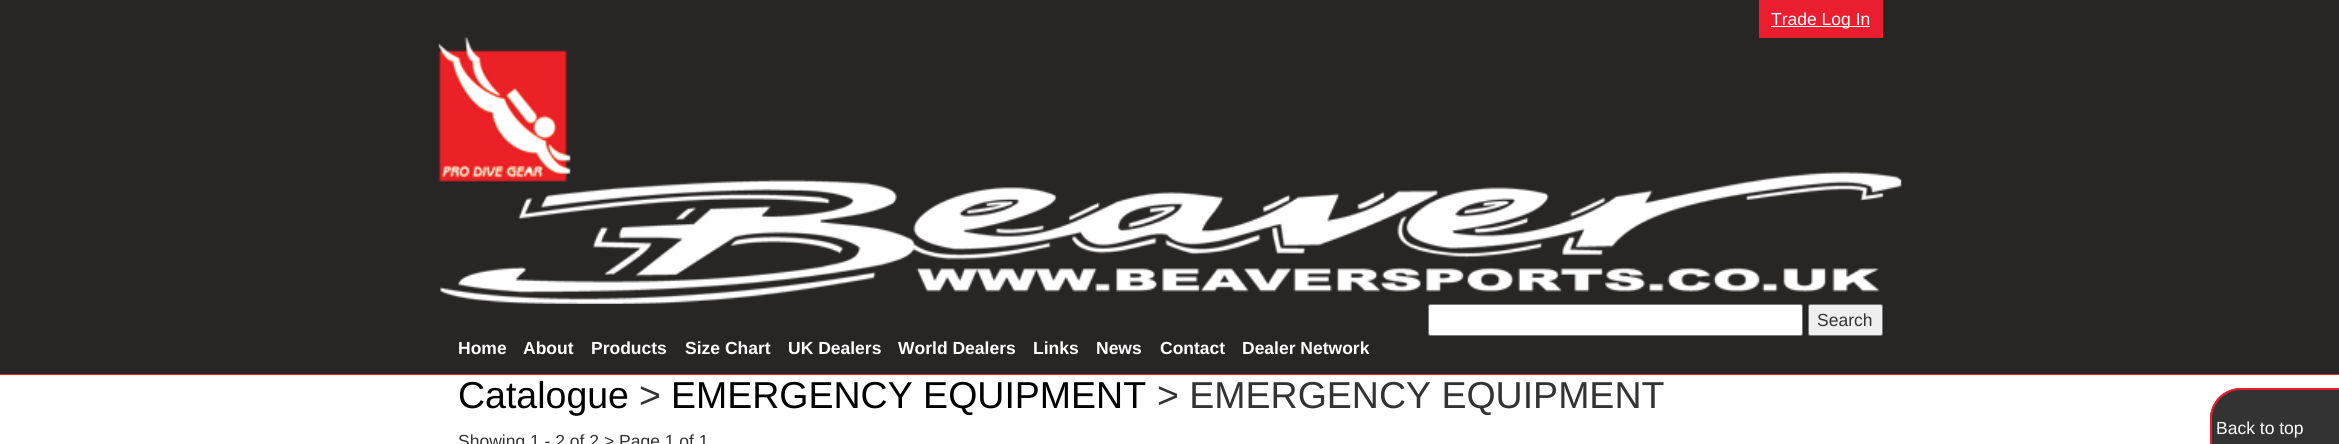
#include <cairo.h>
#include <math.h>
#include <stddef.h>


static void rgb(cairo_t *cr, int r, int g, int b)
{
	cairo_set_source_rgb(cr, r / 255.0, g / 255.0, b / 255.0);
}

static void face(cairo_t *cr, const char *family, double size, int italic, int bold)
{
	cairo_select_font_face(cr, family, italic ? CAIRO_FONT_SLANT_ITALIC : CAIRO_FONT_SLANT_NORMAL,
		bold ? CAIRO_FONT_WEIGHT_BOLD : CAIRO_FONT_WEIGHT_NORMAL);
	cairo_set_font_size(cr, size);
}

static void label(cairo_t *cr, double x, double y, const char *s)
{
	cairo_move_to(cr, x, y);
	cairo_show_text(cr, s);
}

static void rect(cairo_t *cr, double x, double y, double w, double h)
{
	cairo_rectangle(cr, x, y, w, h);
	cairo_fill(cr);
}

static void rrect(cairo_t *cr, double x, double y, double w, double h, double r)
{
	cairo_new_sub_path(cr);
	cairo_arc(cr, x + w - r, y + h - r, r, 0, M_PI / 2);
	cairo_arc(cr, x + r, y + h - r, r, M_PI / 2, M_PI);
	cairo_arc(cr, x + r, y + r, r, M_PI, 1.5 * M_PI);
	cairo_arc(cr, x + w - r, y + r, r, 1.5 * M_PI, 2 * M_PI);
	cairo_close_path(cr);
}

static void image(cairo_t *cr, const char *path, double x, double y, double w, double h)
{
	cairo_surface_t *image = cairo_image_surface_create_from_png(path);
	cairo_save(cr);
	cairo_set_source_surface(cr, image, x, y);
	cairo_rectangle(cr, x, y, w, h);
	cairo_fill(cr);
	cairo_restore(cr);
	cairo_surface_destroy(image);
}

static void draw(cairo_t *cr) {
	rgb(cr, 255, 255, 255);
	cairo_paint(cr);
	rgb(cr, 40, 37, 37);
	rect(cr, 0, 0, 2339, 374);
	rgb(cr, 234, 30, 47);
	rect(cr, 0, 374, 2339, 1);
	image(cr, "image0.png", 438, 37, 1464, 267);
	rect(cr, 1759, 0, 124, 38);
	rgb(cr, 255, 255, 255);
	rect(cr, 1771, 26, 99, 1);
	face(cr, "Liberation Sans", 17.5, 0, 0);
	label(cr, 1771, 25, "Trade Log In");
	rrect(cr, 1428.5, 304.5, 374, 31, 2);
	cairo_fill_preserve(cr);
	rgb(cr, 118, 118, 118);
	cairo_set_line_width(cr, 1);
	cairo_stroke(cr);
	rgb(cr, 239, 239, 239);
	rrect(cr, 1808.5, 304.5, 74, 31, 2);
	cairo_fill_preserve(cr);
	rgb(cr, 118, 118, 118);
	cairo_stroke(cr);
	rgb(cr, 51, 51, 51);
	label(cr, 1817, 326, "Search");
	face(cr, "Liberation Sans", 17.5, 0, 1);
	rgb(cr, 255, 255, 255);
	label(cr, 458, 354, "Home");
	label(cr, 523, 354, "About");
	label(cr, 591, 354, "Products");
	label(cr, 685, 354, "Size Chart");
	label(cr, 788, 354, "UK Dealers");
	label(cr, 898, 354, "World Dealers");
	label(cr, 1033, 354, "Links");
	label(cr, 1096, 354, "News");
	label(cr, 1160, 354, "Contact");
	label(cr, 1242, 354, "Dealer Network");
	face(cr, "Liberation Sans", 37.5, 0, 0);
	rgb(cr, 0, 0, 0);
	label(cr, 458, 408, "Catalogue");
	rgb(cr, 51, 51, 51);
	label(cr, 639, 408, ">");
	rgb(cr, 0, 0, 0);
	label(cr, 671, 408, "EMERGENCY EQUIPMENT");
	rgb(cr, 51, 51, 51);
	label(cr, 1157, 408, "> EMERGENCY EQUIPMENT");
	cairo_new_path(cr);
	cairo_move_to(cr, 2241, 388);
	cairo_line_to(cr, 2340, 388);
	cairo_line_to(cr, 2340, 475);
	cairo_line_to(cr, 2241, 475);
	cairo_curve_to(cr, 2224, 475, 2210, 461, 2210, 444);
	cairo_line_to(cr, 2210, 419);
	cairo_curve_to(cr, 2210, 402, 2224, 388, 2241, 388);
	cairo_close_path(cr);
	cairo_fill(cr);
	rgb(cr, 234, 30, 47);
	cairo_set_fill_rule(cr, CAIRO_FILL_RULE_EVEN_ODD);
	cairo_new_path(cr);
	cairo_move_to(cr, 2241, 388);
	cairo_line_to(cr, 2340, 388);
	cairo_line_to(cr, 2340, 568);
	cairo_line_to(cr, 2241, 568);
	cairo_curve_to(cr, 2224, 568, 2210, 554, 2210, 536);
	cairo_line_to(cr, 2210, 419);
	cairo_curve_to(cr, 2210, 401, 2224, 388, 2241, 388);
	cairo_close_path(cr);
	cairo_move_to(cr, 2241, 390);
	cairo_line_to(cr, 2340, 390);
	cairo_line_to(cr, 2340, 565);
	cairo_line_to(cr, 2241, 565);
	cairo_curve_to(cr, 2225, 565, 2212, 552, 2212, 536);
	cairo_line_to(cr, 2212, 419);
	cairo_curve_to(cr, 2212, 403, 2225, 390, 2241, 390);
	cairo_close_path(cr);
	cairo_fill(cr);
	face(cr, "Liberation Sans", 17.5, 0, 0);
	rgb(cr, 255, 255, 255);
	label(cr, 2216, 434, "Back to top");
	rgb(cr, 51, 51, 51);
	label(cr, 458, 447, "Showing 1 - 2 of 2 > Page 1 of 1");
}

int main(void) {
	cairo_surface_t *surface = cairo_image_surface_create(CAIRO_FORMAT_RGB24, 2339, 444);
	cairo_t *cr = cairo_create(surface);
	cairo_font_options_t *options = cairo_font_options_create();
	cairo_font_options_set_hint_metrics(options, CAIRO_HINT_METRICS_OFF);
	cairo_font_options_set_hint_style(options, CAIRO_HINT_STYLE_NONE);
	cairo_set_font_options(cr, options);
	cairo_set_miter_limit(cr, 4);
	draw(cr);
	cairo_surface_write_to_png(surface, "render.png");
	cairo_font_options_destroy(options);
	cairo_destroy(cr);
	cairo_surface_destroy(surface);
	return 0;
}
